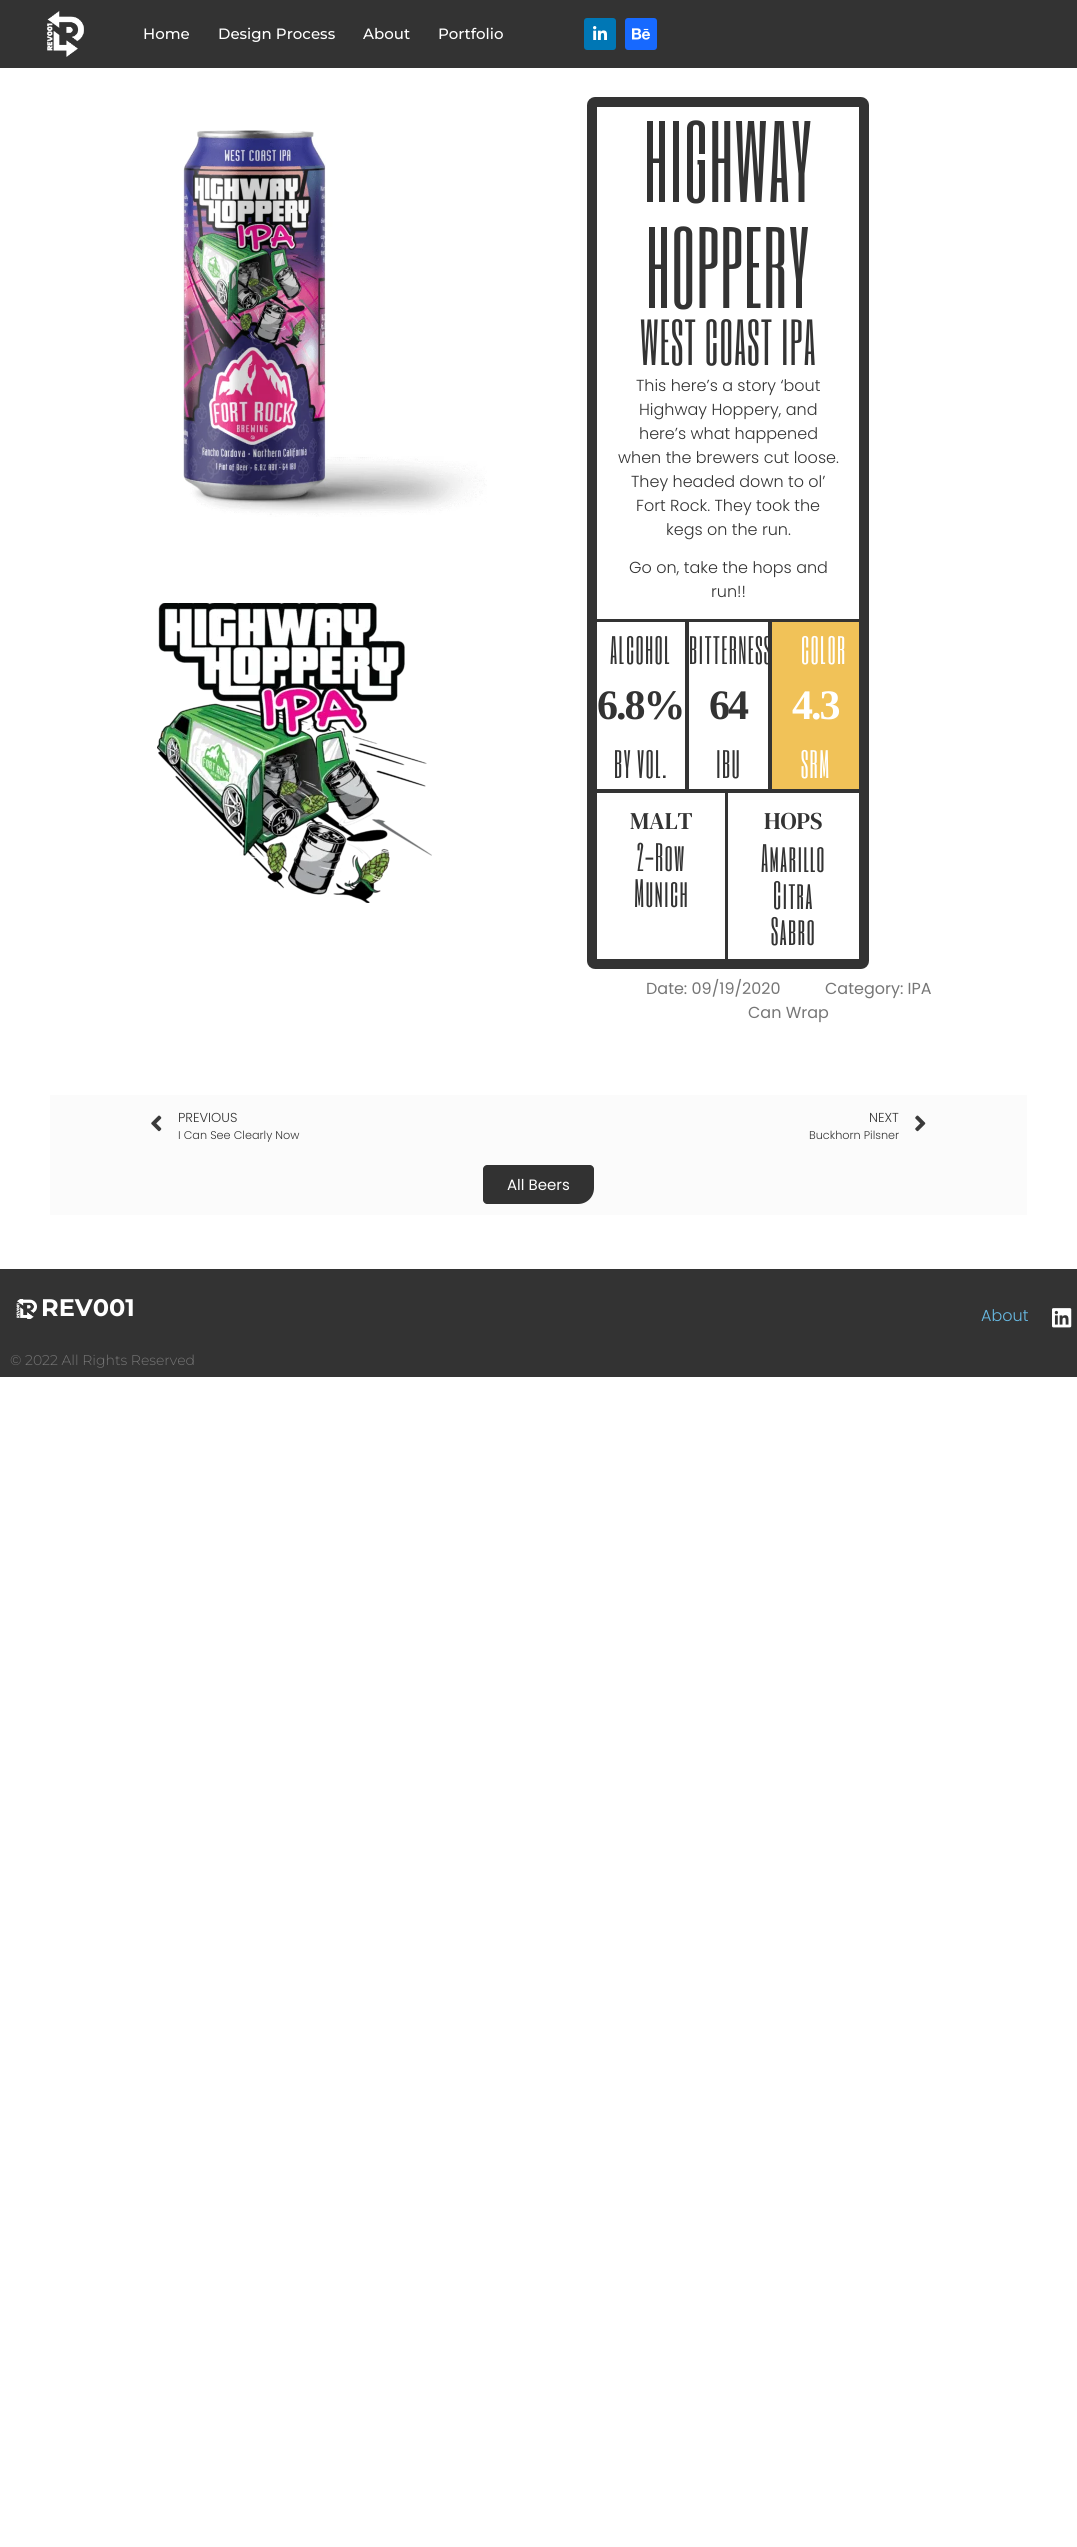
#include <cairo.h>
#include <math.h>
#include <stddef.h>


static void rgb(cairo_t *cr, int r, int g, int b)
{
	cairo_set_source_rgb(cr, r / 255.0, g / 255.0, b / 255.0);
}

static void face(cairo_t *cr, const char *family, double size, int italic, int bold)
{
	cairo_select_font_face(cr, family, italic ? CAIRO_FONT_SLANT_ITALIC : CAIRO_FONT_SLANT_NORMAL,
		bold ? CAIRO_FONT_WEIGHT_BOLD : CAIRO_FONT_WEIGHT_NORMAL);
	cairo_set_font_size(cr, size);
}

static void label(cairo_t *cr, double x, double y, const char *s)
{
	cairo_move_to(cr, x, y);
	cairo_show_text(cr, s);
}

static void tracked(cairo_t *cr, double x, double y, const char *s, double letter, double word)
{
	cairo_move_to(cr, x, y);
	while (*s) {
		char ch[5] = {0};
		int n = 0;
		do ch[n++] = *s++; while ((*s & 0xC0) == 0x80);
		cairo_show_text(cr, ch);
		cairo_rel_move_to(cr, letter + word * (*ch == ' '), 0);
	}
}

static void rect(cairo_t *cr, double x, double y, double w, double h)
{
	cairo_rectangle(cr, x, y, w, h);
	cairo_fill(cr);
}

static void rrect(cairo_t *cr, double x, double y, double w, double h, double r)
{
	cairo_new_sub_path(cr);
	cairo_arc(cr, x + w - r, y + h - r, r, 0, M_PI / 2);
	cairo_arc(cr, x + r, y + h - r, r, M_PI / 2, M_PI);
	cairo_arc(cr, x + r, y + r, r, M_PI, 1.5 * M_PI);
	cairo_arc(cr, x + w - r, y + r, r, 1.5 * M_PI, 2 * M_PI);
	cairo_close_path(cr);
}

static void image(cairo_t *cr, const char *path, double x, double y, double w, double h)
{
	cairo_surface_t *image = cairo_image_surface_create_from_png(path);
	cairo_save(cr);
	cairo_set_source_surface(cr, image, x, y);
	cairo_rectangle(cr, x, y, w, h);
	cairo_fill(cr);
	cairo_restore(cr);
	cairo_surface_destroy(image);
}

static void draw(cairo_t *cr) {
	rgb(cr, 255, 255, 255);
	cairo_paint(cr);
	rgb(cr, 51, 51, 51);
	rect(cr, 0, 0, 1077, 68);
	image(cr, "image0.png", 47, 10, 37, 47);
	face(cr, "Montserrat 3 Thin", 15, 0, 0);
	rgb(cr, 255, 255, 255);
	label(cr, 143, 39, "Home");
	label(cr, 218, 39, "Design Process");
	label(cr, 363, 39, "About");
	label(cr, 438, 39, "Portfolio");
	rgb(cr, 0, 119, 181);
	rrect(cr, 584, 18, 32, 32, 3);
	cairo_fill(cr);
	image(cr, "image1.png", 593, 26, 14, 14);
	rgb(cr, 23, 105, 255);
	rrect(cr, 625, 18, 32, 32, 3);
	cairo_fill(cr);
	image(cr, "image2.png", 632, 28, 18, 12);
	image(cr, "image3.png", 183, 130, 304, 387);
	image(cr, "image4.png", 157, 603, 275, 300);
	rrect(cr, 592, 102, 272, 862, 3);
	rgb(cr, 51, 51, 51);
	cairo_set_line_width(cr, 10);
	cairo_stroke(cr);
	face(cr, "Six Caps", 96, 0, 0);
	tracked(cr, 644, 202, "HIGHWAY", 1.25, 0);
	tracked(cr, 646, 308, "HOPPERY", 1.25, 0);
	face(cr, "Six Caps", 54, 0, 0);
	tracked(cr, 640, 365, "WEST COAST IPA", 1.25, 0);
	face(cr, "Poppins Light", 16, 0, 0);
	label(cr, 636, 391, "This here’s a story ‘bout");
	label(cr, 639, 415, "Highway Hoppery, and");
	label(cr, 639, 439, "here’s what happened");
	label(cr, 618, 463, "when the brewers cut loose.");
	label(cr, 631, 487, "They headed down to ol’");
	label(cr, 636, 511, "Fort Rock. They took the");
	label(cr, 666, 535, "kegs on the run.");
	label(cr, 629, 573, "Go on, take the hops and");
	label(cr, 711, 597, "run!!");
	rect(cr, 597, 619, 262, 3);
	face(cr, "Six Caps", 33, 0, 0);
	tracked(cr, 610, 664, "ALCOHOL", 1.25, 0);
	face(cr, "Liberation Serif", 42, 0, 1);
	tracked(cr, 597, 719, "6.8%", -2, 0);
	face(cr, "Six Caps", 33, 0, 0);
	tracked(cr, 614, 778, "BY VOL.", 1.25, 0);
	rect(cr, 768, 622, 4, 167);
	rect(cr, 685, 622, 4, 167);
	tracked(cr, 689, 664, "BITTERNESS", 1.25, 0);
	face(cr, "Liberation Serif", 42, 0, 1);
	tracked(cr, 709, 719, "64", -2, 0);
	face(cr, "Six Caps", 33, 0, 0);
	tracked(cr, 716, 778, "IBU", 1.25, 0);
	rgb(cr, 241, 194, 88);
	rect(cr, 772, 622, 87, 167);
	rgb(cr, 255, 255, 255);
	tracked(cr, 801, 664, "COLOR", 1.25, 0);
	face(cr, "Liberation Serif", 42, 0, 1);
	tracked(cr, 792, 719, "4.3", -2, 0);
	face(cr, "Six Caps", 33, 0, 0);
	tracked(cr, 801, 778, "SRM", 1.25, 0);
	rgb(cr, 51, 51, 51);
	rect(cr, 597, 789, 262, 4);
	rect(cr, 725, 793, 3, 166);
	face(cr, "DM Serif Text", 24, 0, 0);
	label(cr, 630, 829, "MALT");
	face(cr, "Six Caps", 33, 0, 0);
	tracked(cr, 637, 871, "2-Row", 1.25, 0);
	tracked(cr, 634, 907, "Munich", 1.25, 0);
	face(cr, "DM Serif Text", 24, 0, 0);
	label(cr, 764, 829, "HOPS");
	face(cr, "Six Caps", 33, 0, 0);
	tracked(cr, 761, 872, "Amarillo", 1.25, 0);
	tracked(cr, 773, 909, "Citra", 1.25, 0);
	tracked(cr, 771, 945, "Sabro", 1.25, 0);
	face(cr, "Poppins", 16, 0, 0);
	rgb(cr, 118, 118, 118);
	label(cr, 646, 994, "Date: 09/19/2020");
	label(cr, 825, 994, "Category: IPA");
	label(cr, 748, 1018, "Can Wrap");
	rgb(cr, 251, 251, 251);
	rect(cr, 50, 1095, 977, 120);
	image(cr, "image5.png", 151, 1115, 11, 17);
	face(cr, "Poppins Light", 13, 0, 0);
	rgb(cr, 51, 51, 51);
	label(cr, 178, 1122, "PREVIOUS");
	face(cr, "Poppins Light", 11.25, 0, 0);
	label(cr, 178, 1139, "I Can See Clearly Now");
	face(cr, "Poppins Light", 13, 0, 0);
	label(cr, 869, 1122, "NEXT");
	face(cr, "Poppins Light", 11.25, 0, 0);
	label(cr, 809, 1139, "Buckhorn Pilsner");
	image(cr, "image6.png", 915, 1115, 11, 17);
	rgb(cr, 50, 50, 50);
	cairo_new_path(cr);
	cairo_move_to(cr, 487, 1165);
	cairo_line_to(cr, 590, 1165);
	cairo_curve_to(cr, 592, 1165, 594, 1167, 594, 1169);
	cairo_line_to(cr, 594, 1188);
	cairo_curve_to(cr, 594, 1197, 587, 1204, 578, 1204);
	cairo_line_to(cr, 487, 1204);
	cairo_curve_to(cr, 485, 1204, 483, 1202, 483, 1200);
	cairo_line_to(cr, 483, 1169);
	cairo_curve_to(cr, 483, 1167, 485, 1165, 487, 1165);
	cairo_close_path(cr);
	cairo_fill(cr);
	face(cr, "Poppins", 15, 0, 0);
	rgb(cr, 255, 255, 255);
	label(cr, 507, 1190, "All Beers");
	rgb(cr, 51, 51, 51);
	rect(cr, 0, 1269, 1077, 108);
	image(cr, "image7.png", 16, 1299, 21, 20);
	face(cr, "Montserrat Thin", 24, 0, 0);
	rgb(cr, 255, 255, 255);
	label(cr, 41, 1316, "REV001");
	face(cr, "Poppins Light", 16, 0, 0);
	rgb(cr, 103, 186, 228);
	label(cr, 981, 1321, "About");
	image(cr, "image8.png", 1052, 1308, 20, 20);
	face(cr, "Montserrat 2 Thin", 14, 0, 0);
	rgb(cr, 118, 118, 118);
	label(cr, 10, 1365, "© 2022 All Rights Reserved");
}

int main(void) {
	cairo_surface_t *surface = cairo_image_surface_create(CAIRO_FORMAT_RGB24, 1077, 2547);
	cairo_t *cr = cairo_create(surface);
	cairo_font_options_t *options = cairo_font_options_create();
	cairo_font_options_set_hint_metrics(options, CAIRO_HINT_METRICS_OFF);
	cairo_font_options_set_hint_style(options, CAIRO_HINT_STYLE_NONE);
	cairo_set_font_options(cr, options);
	cairo_set_miter_limit(cr, 4);
	draw(cr);
	cairo_surface_write_to_png(surface, "render.png");
	cairo_font_options_destroy(options);
	cairo_destroy(cr);
	cairo_surface_destroy(surface);
	return 0;
}
